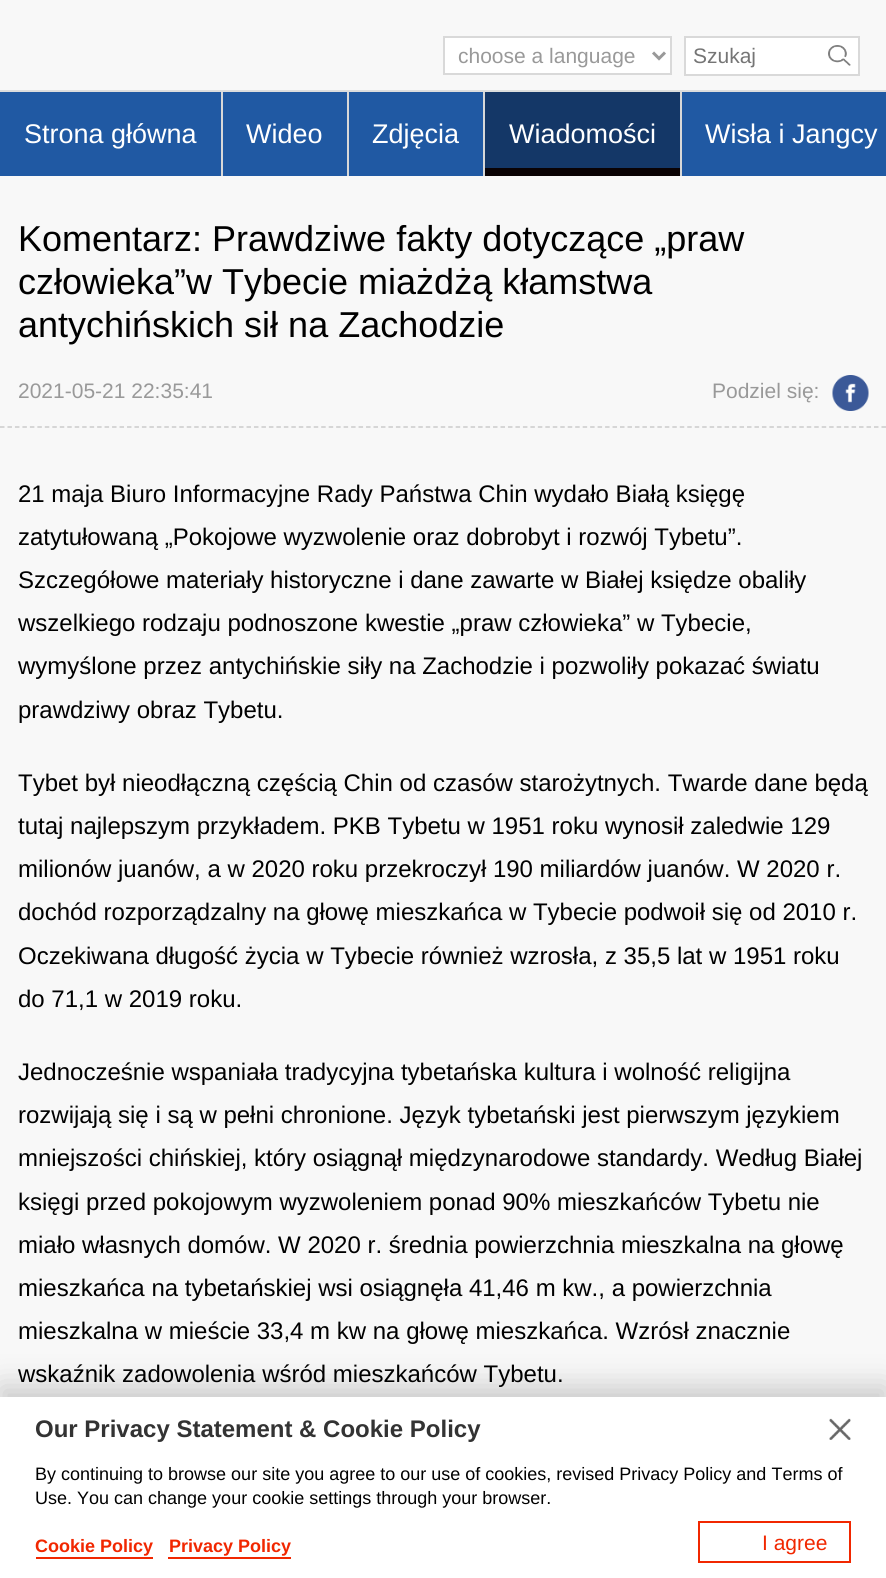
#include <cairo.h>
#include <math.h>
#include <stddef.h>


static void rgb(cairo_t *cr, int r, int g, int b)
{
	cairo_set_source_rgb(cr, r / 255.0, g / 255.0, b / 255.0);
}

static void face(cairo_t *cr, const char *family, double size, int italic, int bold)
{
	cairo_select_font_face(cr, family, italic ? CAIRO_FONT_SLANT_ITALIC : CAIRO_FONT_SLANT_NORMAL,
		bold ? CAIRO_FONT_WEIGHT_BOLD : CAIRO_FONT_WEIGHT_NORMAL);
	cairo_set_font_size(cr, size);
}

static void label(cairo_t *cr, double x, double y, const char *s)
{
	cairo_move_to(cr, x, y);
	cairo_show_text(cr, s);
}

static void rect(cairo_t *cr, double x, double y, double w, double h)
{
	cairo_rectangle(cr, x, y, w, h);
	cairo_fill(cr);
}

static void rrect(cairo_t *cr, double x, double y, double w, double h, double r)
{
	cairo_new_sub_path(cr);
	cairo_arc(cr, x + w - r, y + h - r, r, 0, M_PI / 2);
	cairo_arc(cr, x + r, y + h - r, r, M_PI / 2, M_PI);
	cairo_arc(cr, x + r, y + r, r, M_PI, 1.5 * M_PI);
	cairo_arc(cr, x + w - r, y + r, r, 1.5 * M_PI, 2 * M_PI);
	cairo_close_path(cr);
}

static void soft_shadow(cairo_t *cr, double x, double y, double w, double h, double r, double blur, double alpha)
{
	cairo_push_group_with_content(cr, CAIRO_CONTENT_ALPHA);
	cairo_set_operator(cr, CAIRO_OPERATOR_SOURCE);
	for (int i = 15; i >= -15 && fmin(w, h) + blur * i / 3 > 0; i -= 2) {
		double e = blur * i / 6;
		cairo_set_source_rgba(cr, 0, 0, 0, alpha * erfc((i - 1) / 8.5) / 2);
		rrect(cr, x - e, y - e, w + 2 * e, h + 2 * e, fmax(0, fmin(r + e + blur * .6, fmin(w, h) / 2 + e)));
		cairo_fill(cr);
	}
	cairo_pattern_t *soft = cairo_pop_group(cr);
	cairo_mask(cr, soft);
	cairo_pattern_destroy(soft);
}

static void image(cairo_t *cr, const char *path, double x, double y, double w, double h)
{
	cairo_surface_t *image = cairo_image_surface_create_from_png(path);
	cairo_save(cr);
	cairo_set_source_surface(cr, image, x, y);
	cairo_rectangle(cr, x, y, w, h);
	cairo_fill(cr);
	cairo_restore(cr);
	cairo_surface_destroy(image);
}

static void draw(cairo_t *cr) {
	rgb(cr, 248, 248, 248);
	cairo_paint(cr);
	rgb(cr, 255, 255, 255);
	cairo_rectangle(cr, 444, 37, 227, 37);
	cairo_fill_preserve(cr);
	rgb(cr, 217, 217, 217);
	cairo_stroke(cr);
	cairo_new_path(cr);
	cairo_move_to(cr, 653, 52.5);
	cairo_line_to(cr, 659, 58.5);
	cairo_line_to(cr, 665, 52.5);
	rgb(cr, 153, 153, 153);
	cairo_set_line_width(cr, 3);
	cairo_stroke(cr);
	face(cr, "Liberation Sans", 21, 0, 0);
	label(cr, 458, 63, "choose a language");
	rgb(cr, 255, 255, 255);
	rect(cr, 686, 38, 172, 36);
	rgb(cr, 217, 217, 217);
	rect(cr, 684, 36, 176, 2);
	rect(cr, 684, 74, 137, 2);
	rect(cr, 684, 36, 2, 39);
	rgb(cr, 117, 117, 117);
	label(cr, 693, 63, "Szukaj");
	image(cr, "image0.png", 828, 45, 23, 21);
	rgb(cr, 217, 217, 217);
	rect(cr, 858, 36, 2, 39);
	rect(cr, 821, 74, 39, 2);
	rgb(cr, 32, 89, 163);
	rect(cr, 0, 92, 886, 84);
	rgb(cr, 220, 221, 221);
	rect(cr, 0, 90, 886, 2);
	face(cr, "Liberation Sans", 27, 0, 0);
	rgb(cr, 255, 255, 255);
	label(cr, 24, 143, "Strona główna");
	rgb(cr, 216, 216, 216);
	rect(cr, 221, 92, 2, 84);
	rgb(cr, 255, 255, 255);
	label(cr, 246, 143, "Wideo");
	rgb(cr, 216, 216, 216);
	rect(cr, 347, 92, 2, 84);
	rgb(cr, 255, 255, 255);
	label(cr, 372, 143, "Zdjęcia");
	rgb(cr, 216, 216, 216);
	rect(cr, 483, 92, 2, 84);
	rgb(cr, 20, 55, 103);
	rect(cr, 485, 92, 195, 76);
	rgb(cr, 10, 2, 4);
	rect(cr, 485, 168, 195, 8);
	rgb(cr, 255, 255, 255);
	label(cr, 509, 143, "Wiadomości");
	rgb(cr, 216, 216, 216);
	rect(cr, 680, 92, 2, 84);
	rgb(cr, 255, 255, 255);
	label(cr, 705, 143, "Wisła i Jangcy");
	face(cr, "Liberation Sans", 36, 0, 0);
	rgb(cr, 0, 0, 0);
	label(cr, 18, 251, "Komentarz: Prawdziwe fakty dotyczące „praw");
	label(cr, 18, 294, "człowieka”w Tybecie miażdżą kłamstwa");
	label(cr, 18, 337, "antychińskich sił na Zachodzie");
	cairo_new_path(cr);
	cairo_move_to(cr, 0, 427);
	cairo_line_to(cr, 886.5, 427);
	rgb(cr, 203, 203, 203);
	cairo_set_line_width(cr, 1.5);
	cairo_set_dash(cr, (double[]){4.5, 2.97}, 2, 0);
	cairo_stroke(cr);
	face(cr, "Liberation Sans", 21, 0, 0);
	rgb(cr, 153, 153, 153);
	label(cr, 18, 398, "2021-05-21 22:35:41");
	label(cr, 712, 398, "Podziel się:");
	image(cr, "image1.png", 832, 375, 37, 36);
	face(cr, "Liberation Sans", 24, 0, 0);
	rgb(cr, 0, 0, 0);
	label(cr, 18, 502, "21 maja Biuro Informacyjne Rady Państwa Chin wydało Białą księgę");
	label(cr, 18, 545, "zatytułowaną „Pokojowe wyzwolenie oraz dobrobyt i rozwój Tybetu”.");
	label(cr, 18, 588, "Szczegółowe materiały historyczne i dane zawarte w Białej księdze obaliły");
	label(cr, 18, 631, "wszelkiego rodzaju podnoszone kwestie „praw człowieka” w Tybecie,");
	label(cr, 18, 674, "wymyślone przez antychińskie siły na Zachodzie i pozwoliły pokazać światu");
	label(cr, 18, 718, "prawdziwy obraz Tybetu.");
	label(cr, 18, 791, "Tybet był nieodłączną częścią Chin od czasów starożytnych. Twarde dane będą");
	label(cr, 18, 834, "tutaj najlepszym przykładem. PKB Tybetu w 1951 roku wynosił zaledwie 129");
	label(cr, 18, 877, "milionów juanów, a w 2020 roku przekroczył 190 miliardów juanów. W 2020 r.");
	label(cr, 18, 920, "dochód rozporządzalny na głowę mieszkańca w Tybecie podwoił się od 2010 r.");
	label(cr, 18, 964, "Oczekiwana długość życia w Tybecie również wzrosła, z 35,5 lat w 1951 roku");
	label(cr, 18, 1007, "do 71,1 w 2019 roku.");
	label(cr, 18, 1080, "Jednocześnie wspaniała tradycyjna tybetańska kultura i wolność religijna");
	label(cr, 18, 1123, "rozwijają się i są w pełni chronione. Język tybetański jest pierwszym językiem");
	label(cr, 18, 1166, "mniejszości chińskiej, który osiągnął międzynarodowe standardy. Według Białej");
	label(cr, 18, 1210, "księgi przed pokojowym wyzwoleniem ponad 90% mieszkańców Tybetu nie");
	label(cr, 18, 1253, "miało własnych domów. W 2020 r. średnia powierzchnia mieszkalna na głowę");
	label(cr, 18, 1296, "mieszkańca na tybetańskiej wsi osiągnęła 41,46 m kw., a powierzchnia");
	label(cr, 18, 1339, "mieszkalna w mieście 33,4 m kw na głowę mieszkańca. Wzrósł znacznie");
	label(cr, 18, 1382, "wskaźnik zadowolenia wśród mieszkańców Tybetu.");
	rgb(cr, 0, 0, 0);
	soft_shadow(cr, 0, 1386, 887, 182, 0, 15, 0.19);
	rgb(cr, 255, 255, 255);
	rect(cr, 0, 1397, 886, 181);
	face(cr, "Liberation Sans", 24, 0, 1);
	rgb(cr, 51, 51, 51);
	label(cr, 35, 1437, "Our Privacy Statement & Cookie Policy");
	image(cr, "image2.png", 829, 1418, 22, 22);
	face(cr, "Liberation Sans", 18, 0, 0);
	rgb(cr, 0, 0, 0);
	label(cr, 35, 1480, "By continuing to browse our site you agree to our use of cookies, revised Privacy Policy and Terms of");
	label(cr, 35, 1504, "Use. You can change your cookie settings through your browser.");
	face(cr, "Liberation Sans", 18, 0, 1);
	rgb(cr, 241, 39, 0);
	label(cr, 35, 1552, "Cookie Policy");
	rect(cr, 36, 1557, 117, 2);
	label(cr, 169, 1552, "Privacy Policy");
	rect(cr, 168, 1557, 123, 2);
	cairo_rectangle(cr, 699, 1522, 151, 40);
	cairo_set_line_width(cr, 2);
	cairo_set_dash(cr, NULL, 0, 0);
	cairo_stroke(cr);
	face(cr, "Liberation Sans", 21, 0, 0);
	label(cr, 762, 1550, "I agree");
}

int main(void) {
	cairo_surface_t *surface = cairo_image_surface_create(CAIRO_FORMAT_RGB24, 886, 1578);
	cairo_t *cr = cairo_create(surface);
	cairo_font_options_t *options = cairo_font_options_create();
	cairo_font_options_set_hint_metrics(options, CAIRO_HINT_METRICS_OFF);
	cairo_font_options_set_hint_style(options, CAIRO_HINT_STYLE_NONE);
	cairo_set_font_options(cr, options);
	cairo_set_miter_limit(cr, 4);
	draw(cr);
	cairo_surface_write_to_png(surface, "render.png");
	cairo_font_options_destroy(options);
	cairo_destroy(cr);
	cairo_surface_destroy(surface);
	return 0;
}
